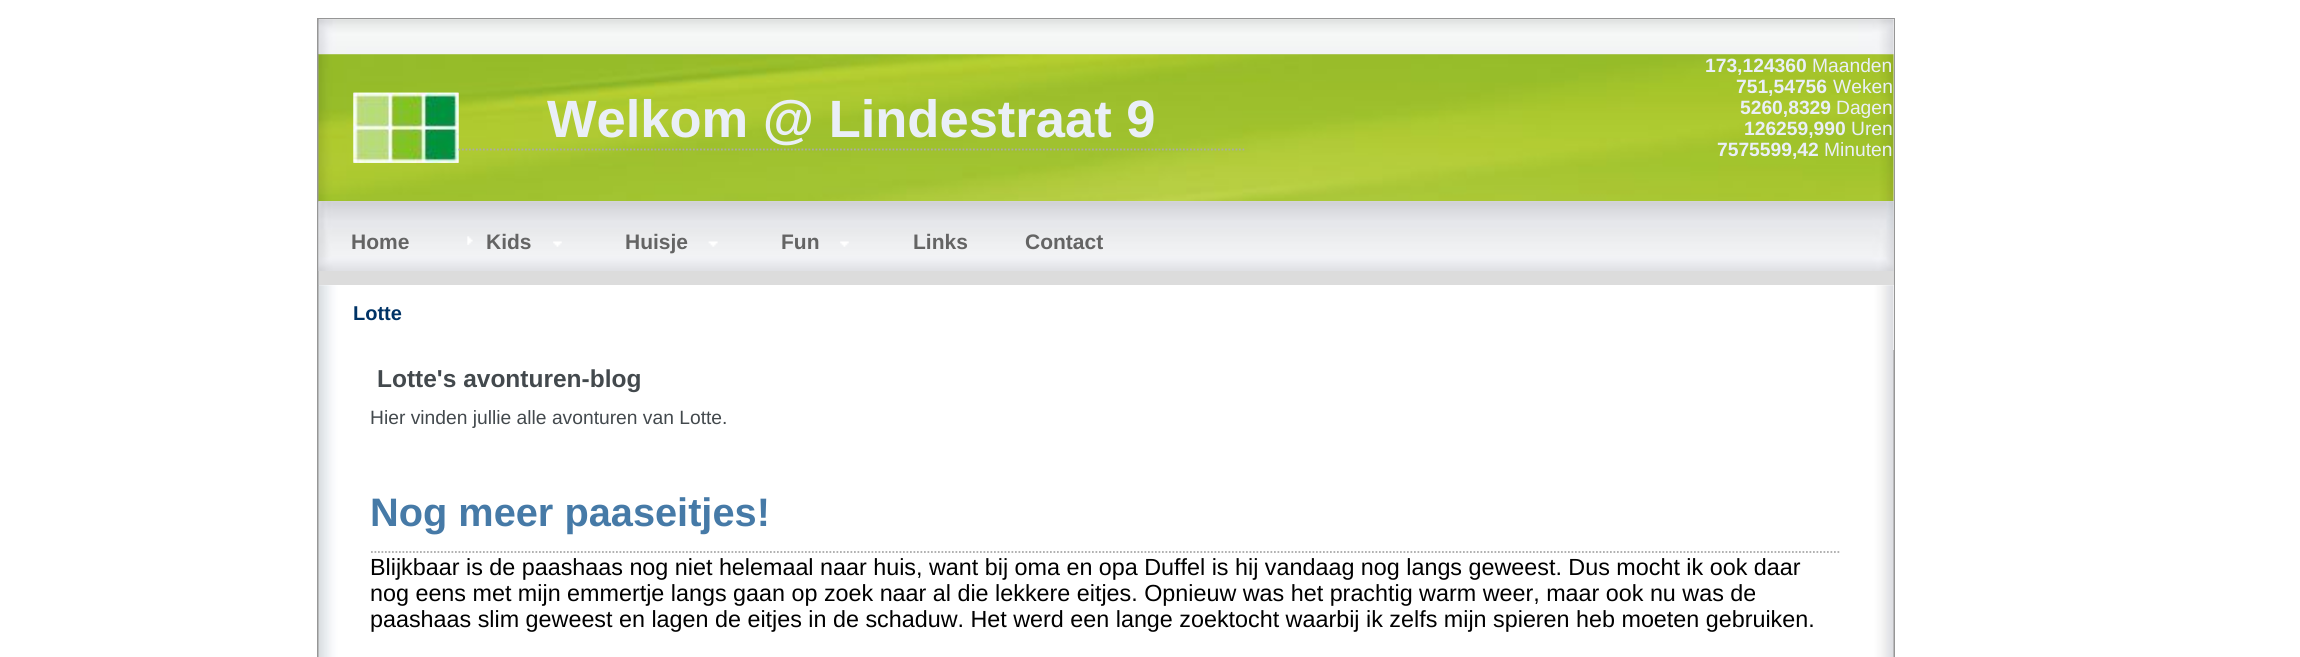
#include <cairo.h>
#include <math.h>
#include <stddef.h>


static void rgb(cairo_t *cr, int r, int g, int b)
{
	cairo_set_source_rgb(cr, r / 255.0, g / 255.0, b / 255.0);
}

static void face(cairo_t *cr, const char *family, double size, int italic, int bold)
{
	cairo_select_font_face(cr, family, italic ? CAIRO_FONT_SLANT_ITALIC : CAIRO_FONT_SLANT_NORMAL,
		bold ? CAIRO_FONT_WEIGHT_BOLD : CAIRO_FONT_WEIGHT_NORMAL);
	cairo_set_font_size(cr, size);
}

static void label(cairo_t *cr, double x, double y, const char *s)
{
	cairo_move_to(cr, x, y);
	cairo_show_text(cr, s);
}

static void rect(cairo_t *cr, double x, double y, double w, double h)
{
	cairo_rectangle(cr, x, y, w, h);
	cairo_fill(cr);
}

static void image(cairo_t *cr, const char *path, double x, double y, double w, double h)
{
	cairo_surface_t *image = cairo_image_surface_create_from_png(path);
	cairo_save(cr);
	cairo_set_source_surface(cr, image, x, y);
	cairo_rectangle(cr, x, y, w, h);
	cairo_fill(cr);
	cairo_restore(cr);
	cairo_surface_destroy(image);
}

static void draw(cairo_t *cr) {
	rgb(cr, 255, 255, 255);
	cairo_paint(cr);
	cairo_rectangle(cr, 318, 19, 1576, 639);
	rgb(cr, 150, 150, 150);
	cairo_stroke(cr);
	rgb(cr, 240, 240, 240);
	rect(cr, 319, 19, 1575, 35);
	image(cr, "image0.png", 318, 19, 1576, 36);
	rgb(cr, 230, 230, 230);
	rect(cr, 319, 54, 1575, 147);
	image(cr, "image1.png", 318, 54, 1576, 148);
	image(cr, "image2.png", 353, 92, 106, 71);
	image(cr, "image3.png", 353, 92, 106, 71);
	cairo_new_path(cr);
	cairo_move_to(cr, 458.5, 149.5);
	cairo_line_to(cr, 1246, 149.5);
	rgb(cr, 170, 170, 170);
	cairo_set_line_width(cr, 1.8);
	cairo_set_dash(cr, (double[]){1.75, 1.75}, 2, 0);
	cairo_stroke(cr);
	face(cr, "Liberation Sans", 52.5, 0, 1);
	rgb(cr, 234, 239, 247);
	label(cr, 547, 137, "Welkom @ Lindestraat 9");
	face(cr, "Liberation Sans", 19.25, 0, 1);
	label(cr, 1705, 72, "173,124360");
	face(cr, "Liberation Sans", 19.25, 0, 0);
	label(cr, 1812, 72, "Maanden");
	face(cr, "Liberation Sans", 19.25, 0, 1);
	label(cr, 1736, 93, "751,54756");
	face(cr, "Liberation Sans", 19.25, 0, 0);
	label(cr, 1833, 93, "Weken");
	face(cr, "Liberation Sans", 19.25, 0, 1);
	label(cr, 1740, 114, "5260,8329");
	face(cr, "Liberation Sans", 19.25, 0, 0);
	label(cr, 1836, 114, "Dagen");
	face(cr, "Liberation Sans", 19.25, 0, 1);
	label(cr, 1744, 135, "126259,990");
	face(cr, "Liberation Sans", 19.25, 0, 0);
	label(cr, 1851, 135, "Uren");
	face(cr, "Liberation Sans", 19.25, 0, 1);
	label(cr, 1717, 156, "7575599,42");
	face(cr, "Liberation Sans", 19.25, 0, 0);
	label(cr, 1824, 156, "Minuten");
	image(cr, "image4.png", 318, 201, 1, 85);
	rgb(cr, 220, 220, 220);
	rect(cr, 319, 201, 1575, 84);
	image(cr, "image5.png", 318, 201, 1576, 70);
	face(cr, "Liberation Sans", 21, 0, 1);
	rgb(cr, 100, 100, 100);
	label(cr, 351, 249, "Home");
	image(cr, "image6.png", 467, 236, 6, 9);
	label(cr, 486, 249, "Kids");
	image(cr, "image7.png", 553, 241, 9, 6);
	label(cr, 625, 249, "Huisje");
	image(cr, "image8.png", 708, 241, 10, 6);
	label(cr, 781, 249, "Fun");
	image(cr, "image9.png", 840, 241, 9, 6);
	label(cr, 913, 249, "Links");
	label(cr, 1025, 249, "Contact");
	rgb(cr, 255, 255, 255);
	rect(cr, 1893, 285, 1, 65);
	image(cr, "image10.png", 318, 285, 1576, 65);
	face(cr, "Liberation Sans", 20, 0, 1);
	rgb(cr, 0, 51, 102);
	label(cr, 353, 320, "Lotte");
	image(cr, "image11.png", 318, 350, 1576, 307);
	face(cr, "Liberation Sans", 24.5, 0, 1);
	rgb(cr, 67, 73, 77);
	label(cr, 377, 387, "Lotte's avonturen-blog");
	face(cr, "Liberation Sans", 19.25, 0, 0);
	label(cr, 370, 424, "Hier vinden jullie alle avonturen van Lotte.");
	face(cr, "Liberation Sans", 39.75, 0, 1);
	rgb(cr, 70, 122, 167);
	label(cr, 370, 526, "Nog meer paaseitjes!");
	cairo_new_path(cr);
	cairo_move_to(cr, 371, 552);
	cairo_line_to(cr, 1841, 552);
	rgb(cr, 170, 170, 170);
	cairo_stroke(cr);
	face(cr, "Liberation Sans", 23.33, 0, 0);
	rgb(cr, 0, 0, 0);
	label(cr, 370, 575, "Blijkbaar is de paashaas nog niet helemaal naar huis, want bij oma en opa Duffel is hij vandaag nog langs geweest. Dus mocht ik ook daar");
	label(cr, 370, 601, "nog eens met mijn emmertje langs gaan op zoek naar al die lekkere eitjes. Opnieuw was het prachtig warm weer, maar ook nu was de");
	label(cr, 370, 627, "paashaas slim geweest en lagen de eitjes in de schaduw. Het werd een lange zoektocht waarbij ik zelfs mijn spieren heb moeten gebruiken.");
}

int main(void) {
	cairo_surface_t *surface = cairo_image_surface_create(CAIRO_FORMAT_RGB24, 2300, 657);
	cairo_t *cr = cairo_create(surface);
	cairo_font_options_t *options = cairo_font_options_create();
	cairo_font_options_set_hint_metrics(options, CAIRO_HINT_METRICS_OFF);
	cairo_font_options_set_hint_style(options, CAIRO_HINT_STYLE_NONE);
	cairo_set_font_options(cr, options);
	cairo_set_miter_limit(cr, 4);
	draw(cr);
	cairo_surface_write_to_png(surface, "render.png");
	cairo_font_options_destroy(options);
	cairo_destroy(cr);
	cairo_surface_destroy(surface);
	return 0;
}
